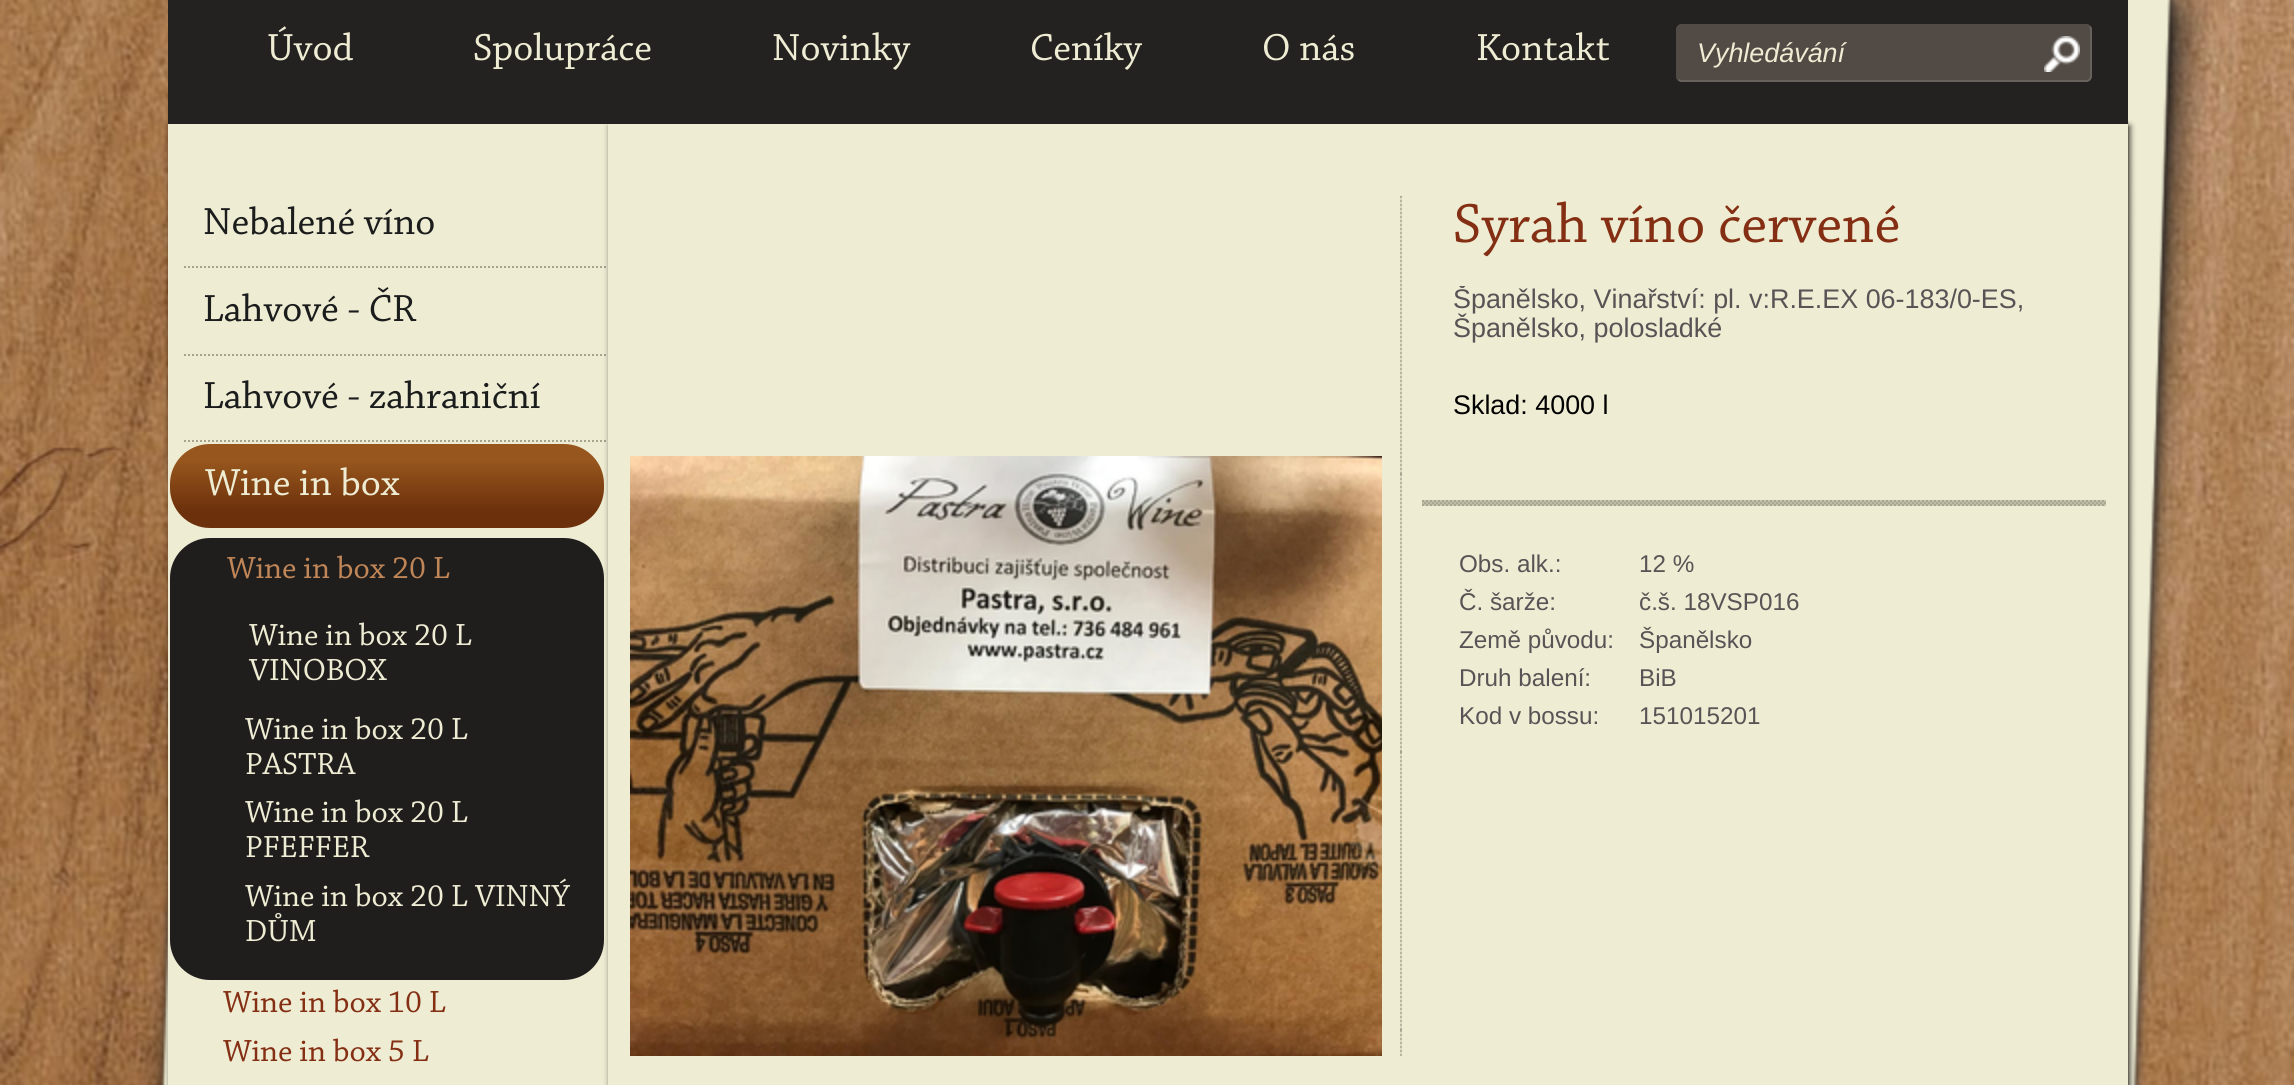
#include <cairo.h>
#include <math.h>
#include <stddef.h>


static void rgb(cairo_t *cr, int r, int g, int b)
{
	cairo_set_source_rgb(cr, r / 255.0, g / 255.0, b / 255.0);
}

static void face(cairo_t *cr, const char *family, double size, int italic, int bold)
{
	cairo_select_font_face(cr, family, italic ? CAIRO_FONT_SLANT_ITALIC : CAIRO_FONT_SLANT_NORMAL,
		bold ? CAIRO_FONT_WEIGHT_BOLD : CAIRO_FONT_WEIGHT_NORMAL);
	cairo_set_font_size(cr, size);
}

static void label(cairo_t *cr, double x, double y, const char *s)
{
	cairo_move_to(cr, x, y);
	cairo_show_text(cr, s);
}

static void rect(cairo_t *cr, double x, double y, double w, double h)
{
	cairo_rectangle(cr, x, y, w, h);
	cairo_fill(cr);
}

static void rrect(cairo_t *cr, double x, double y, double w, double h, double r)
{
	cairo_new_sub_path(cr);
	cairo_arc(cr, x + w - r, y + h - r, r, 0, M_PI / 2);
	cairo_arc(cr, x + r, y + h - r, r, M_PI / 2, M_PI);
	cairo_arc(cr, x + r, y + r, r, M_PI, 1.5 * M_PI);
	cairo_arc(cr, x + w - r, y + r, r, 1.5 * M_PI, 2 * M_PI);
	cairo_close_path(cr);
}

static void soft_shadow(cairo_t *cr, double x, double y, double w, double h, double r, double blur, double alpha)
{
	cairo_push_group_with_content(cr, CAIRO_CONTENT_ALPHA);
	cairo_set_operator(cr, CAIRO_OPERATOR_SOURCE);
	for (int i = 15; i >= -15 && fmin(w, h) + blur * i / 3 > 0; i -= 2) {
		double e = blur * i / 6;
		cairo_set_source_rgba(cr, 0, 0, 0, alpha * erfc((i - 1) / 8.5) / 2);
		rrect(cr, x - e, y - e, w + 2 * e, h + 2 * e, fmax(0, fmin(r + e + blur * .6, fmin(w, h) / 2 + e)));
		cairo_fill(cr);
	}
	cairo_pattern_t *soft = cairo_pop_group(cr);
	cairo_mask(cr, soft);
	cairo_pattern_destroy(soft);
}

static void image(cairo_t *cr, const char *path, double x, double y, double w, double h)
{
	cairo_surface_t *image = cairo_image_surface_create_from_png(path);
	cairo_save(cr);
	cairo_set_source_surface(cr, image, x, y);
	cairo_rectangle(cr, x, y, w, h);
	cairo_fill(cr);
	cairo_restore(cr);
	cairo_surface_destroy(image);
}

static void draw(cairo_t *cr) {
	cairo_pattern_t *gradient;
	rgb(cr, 255, 255, 255);
	cairo_paint(cr);
	image(cr, "image0.png", 0, 0, 2294, 1085);
	image(cr, "image1.png", 2128, 0, 87, 1085);
	image(cr, "image3.png", 140, 582, 28, 503);
	rgb(cr, 0, 0, 0);
	soft_shadow(cr, 170, 126, 440, 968, 0, 3, 0.75);
	rgb(cr, 238, 236, 211);
	rect(cr, 168, 124, 440, 961);
	cairo_new_path(cr);
	cairo_move_to(cr, 184, 267);
	cairo_line_to(cr, 608, 267);
	rgb(cr, 166, 164, 143);
	cairo_set_dash(cr, (double[]){2, 2}, 2, 0);
	cairo_stroke(cr);
	cairo_new_path(cr);
	cairo_move_to(cr, 184, 355);
	cairo_line_to(cr, 608, 355);
	cairo_stroke(cr);
	cairo_new_path(cr);
	cairo_move_to(cr, 184, 441);
	cairo_line_to(cr, 608, 441);
	cairo_stroke(cr);
	gradient = cairo_pattern_create_linear(387, 444, 387, 528);
	cairo_pattern_add_color_stop_rgba(gradient, 0.2, 0.592, 0.337, 0.114, 1);
	cairo_pattern_add_color_stop_rgba(gradient, 0.8, 0.424, 0.192, 0.047, 1);
	cairo_set_source(cr, gradient);
	cairo_pattern_destroy(gradient);
	rrect(cr, 170, 444, 434, 84, 40);
	cairo_fill(cr);
	rgb(cr, 31, 30, 29);
	rrect(cr, 170, 538, 434, 442, 40);
	cairo_fill(cr);
	rgb(cr, 0, 0, 0);
	soft_shadow(cr, 610, 126, 1520, 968, 0, 3, 0.75);
	rgb(cr, 36, 34, 33);
	rect(cr, 168, 0, 1960, 124);
	face(cr, "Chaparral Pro", 39.75, 0, 0);
	rgb(cr, 238, 236, 211);
	label(cr, 267, 60, "Úvod");
	label(cr, 473, 60, "Spolupráce");
	label(cr, 772, 60, "Novinky");
	label(cr, 1030, 60, "Ceníky");
	label(cr, 1262, 60, "O nás");
	label(cr, 1476, 60, "Kontakt");
	rgb(cr, 82, 75, 69);
	rrect(cr, 1676, 24, 416, 58, 6);
	cairo_fill(cr);
	cairo_new_path(cr);
	cairo_move_to(cr, 2089.5, 26.5);
	cairo_curve_to(cr, 2090.5, 27.5, 2091, 28.5, 2091, 30);
	cairo_line_to(cr, 2091, 76);
	cairo_curve_to(cr, 2091, 77.5, 2090.5, 78.5, 2089.5, 79.5);
	cairo_curve_to(cr, 2088.5, 80.5, 2087.5, 81, 2086, 81);
	cairo_line_to(cr, 1682, 81);
	cairo_curve_to(cr, 1680.5, 81, 1679.5, 80.5, 1678.5, 79.5);
	rgb(cr, 103, 97, 92);
	cairo_set_dash(cr, NULL, 0, 0);
	cairo_stroke(cr);
	cairo_new_path(cr);
	cairo_move_to(cr, 1678.5, 79.5);
	cairo_curve_to(cr, 1677.5, 78.5, 1677, 77.5, 1677, 76);
	cairo_line_to(cr, 1677, 30);
	cairo_curve_to(cr, 1677, 28.5, 1677.5, 27.5, 1678.5, 26.5);
	cairo_curve_to(cr, 1679.5, 25.5, 1680.5, 25, 1682, 25);
	cairo_line_to(cr, 2086, 25);
	cairo_curve_to(cr, 2087.5, 25, 2088.5, 25.5, 2089.5, 26.5);
	rgb(cr, 82, 75, 69);
	cairo_stroke(cr);
	face(cr, "Liberation Sans", 26.9, 1, 0);
	rgb(cr, 238, 236, 211);
	label(cr, 1697, 62, "Vyhledávání");
	image(cr, "image2.png", 2044, 36, 36, 36);
	face(cr, "Chaparral Pro", 39.75, 0, 0);
	rgb(cr, 27, 28, 28);
	label(cr, 203, 234, "Nebalené víno");
	label(cr, 203, 321, "Lahvové - ČR");
	label(cr, 203, 408, "Lahvové - zahraniční");
	rgb(cr, 238, 236, 211);
	label(cr, 205, 495, "Wine in box");
	face(cr, "Chaparral Pro", 32.25, 0, 0);
	rgb(cr, 192, 134, 87);
	label(cr, 227, 578, "Wine in box 20 L");
	rgb(cr, 238, 236, 211);
	label(cr, 249, 645, "Wine in box 20 L");
	label(cr, 249, 680, "VINOBOX");
	label(cr, 245, 739, "Wine in box 20 L");
	label(cr, 245, 774, "PASTRA");
	label(cr, 245, 822, "Wine in box 20 L");
	label(cr, 245, 857, "PFEFFER");
	label(cr, 245, 906, "Wine in box 20 L VINNÝ");
	label(cr, 245, 941, "DŮM");
	rgb(cr, 132, 47, 19);
	label(cr, 223, 1012, "Wine in box 10 L");
	label(cr, 223, 1061, "Wine in box 5 L");
	rgb(cr, 238, 236, 211);
	rect(cr, 608, 124, 1520, 961);
	image(cr, "image4.png", 1400, 196, 2, 860);
	image(cr, "image5.png", 630, 456, 752, 600);
	face(cr, "Chaparral Pro", 58, 0, 0);
	rgb(cr, 132, 47, 19);
	label(cr, 1453, 242, "Syrah víno červené");
	cairo_save(cr);
	cairo_rectangle(cr, 1422, 286, 684, 60);
	cairo_clip(cr);
	face(cr, "Liberation Sans", 26.9, 0, 0);
	rgb(cr, 90, 83, 85);
	label(cr, 1453, 308, "Španělsko, Vinařství: pl. v:R.E.EX 06-183/0-ES,");
	cairo_restore(cr);
	face(cr, "Liberation Sans", 26.9, 0, 0);
	rgb(cr, 90, 83, 85);
	label(cr, 1453, 337, "Španělsko, polosladké");
	rgb(cr, 0, 0, 0);
	label(cr, 1453, 414, "Sklad: 4000 l");
	image(cr, "image6.png", 1422, 500, 684, 6);
	face(cr, "Liberation Sans", 24.25, 0, 0);
	rgb(cr, 90, 83, 85);
	label(cr, 1459, 572, "Obs. alk.:");
	label(cr, 1639, 572, "12 %");
	label(cr, 1459, 610, "Č. šarže:");
	label(cr, 1639, 610, "č.š. 18VSP016");
	label(cr, 1459, 648, "Země původu:");
	label(cr, 1639, 648, "Španělsko");
	label(cr, 1459, 686, "Druh balení:");
	label(cr, 1639, 686, "BiB");
	label(cr, 1459, 724, "Kod v bossu:");
	label(cr, 1639, 724, "151015201");
}

int main(void) {
	cairo_surface_t *surface = cairo_image_surface_create(CAIRO_FORMAT_RGB24, 2294, 1085);
	cairo_t *cr = cairo_create(surface);
	cairo_font_options_t *options = cairo_font_options_create();
	cairo_font_options_set_hint_metrics(options, CAIRO_HINT_METRICS_OFF);
	cairo_font_options_set_hint_style(options, CAIRO_HINT_STYLE_NONE);
	cairo_set_font_options(cr, options);
	cairo_set_miter_limit(cr, 4);
	draw(cr);
	cairo_surface_write_to_png(surface, "render.png");
	cairo_font_options_destroy(options);
	cairo_destroy(cr);
	cairo_surface_destroy(surface);
	return 0;
}
